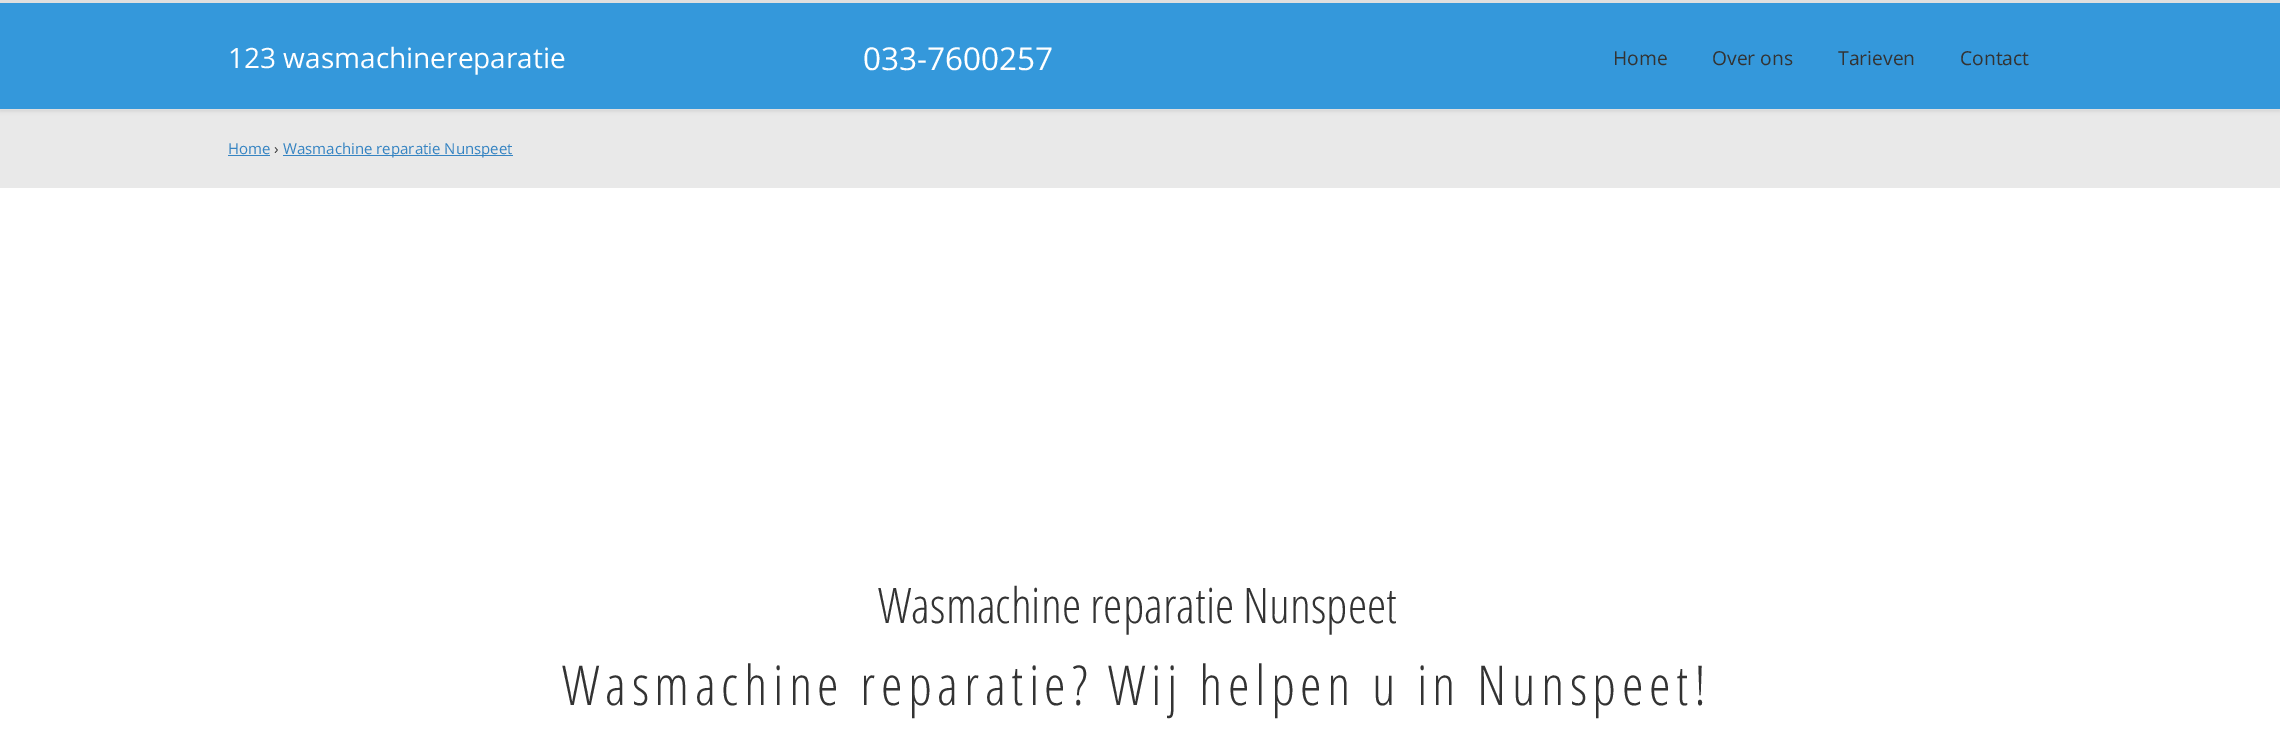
%!PS-Adobe-3.0
%%BoundingBox: 0 0 2280 747
%%LanguageLevel: 3
%%Pages: 1
%%EndComments
%%BeginProlog
/m { moveto } bind def
/fn { [ exch dup neg 0 0 3 -1 roll 0 0 ] selectfont } def
/tx { moveto show } def
/bx { rectfill } def
/al { dup .setfillconstantalpha .setstrokeconstantalpha } def
/rr { 5 dict begin { /r /h /w /y /x } { exch def } forall
  x r add y moveto x w add y 2 copy h add r arct x w add y h add x 1 index r arct
  x y h add x y r arct x y 2 copy exch w add exch r arct closepath end } def
/sh { 12 dict begin { /a /b /q /h /w /y /x } { exch def } forall gsave /was 0 def
  9 -2 -9 { dup b mul 4 div /e exch def 1 sub .425 mul 2.718 exch exp 1 add a .99 .min exch div /now exch def
    1 1 now sub 1 was sub div sub al /was now def
    w h .min e 2 mul add 0 gt { x e sub y e sub w e 2 mul add h e 2 mul add
      q e add b .6 mul add w h .min 2 div e add .min 0 .max rr fill } if } for grestore end } def
%%EndProlog
%%BeginSetup
<< /PageSize [2280 747] /PageUsesTransparency true >> setpagedevice
%%EndSetup
%%Page: 1 1
0 .pushpdf14devicefilter
0 747 translate 1 -1 scale
4 setmiterlimit
1 setgray
0 0 2280 747 bx
0.914 setgray
0 110 2280 78 bx
0 setgray
0 1 2280 110 0 2 0.1 sh
0.204 0.596 0.859 setrgbcolor
0 3 2280 106 bx
0.875 setgray
0 0 2280 3 bx
0 109 2280 1 bx
/OpenSans-Regular 28 fn
1 setgray
(123 wasmachinereparatie) 228 68 tx
/OpenSans-Regular 31.5 fn
(033-7600257) 863 70 tx
/OpenSans-Regular 19.25 fn
0.2 setgray
(Home) 1613 65 tx
(Over ons) 1712 65 tx
(Tarieven) 1838 65 tx
(Contact) 1960 65 tx
/OpenSans-Regular 15 fn
0.212 0.518 0.761 setrgbcolor
(Home) 228 154 tx
228 155 42 1 bx
0.2 setgray
(›) 274 154 tx
0.212 0.518 0.761 setrgbcolor
283 155 230 1 bx
(Wasmachine reparatie Nunspeet) 283 154 tx
/OpenSans-Light 49 fn
0.2 setgray
(Wasmachine reparatie Nunspeet) 878 623 tx
/OpenSans-Light 55 fn
562 705 m 5.5 0 (Wasmachine reparatie? Wij helpen u in Nunspeet!) ashow
.poppdf14devicefilter showpage
%%EOF
